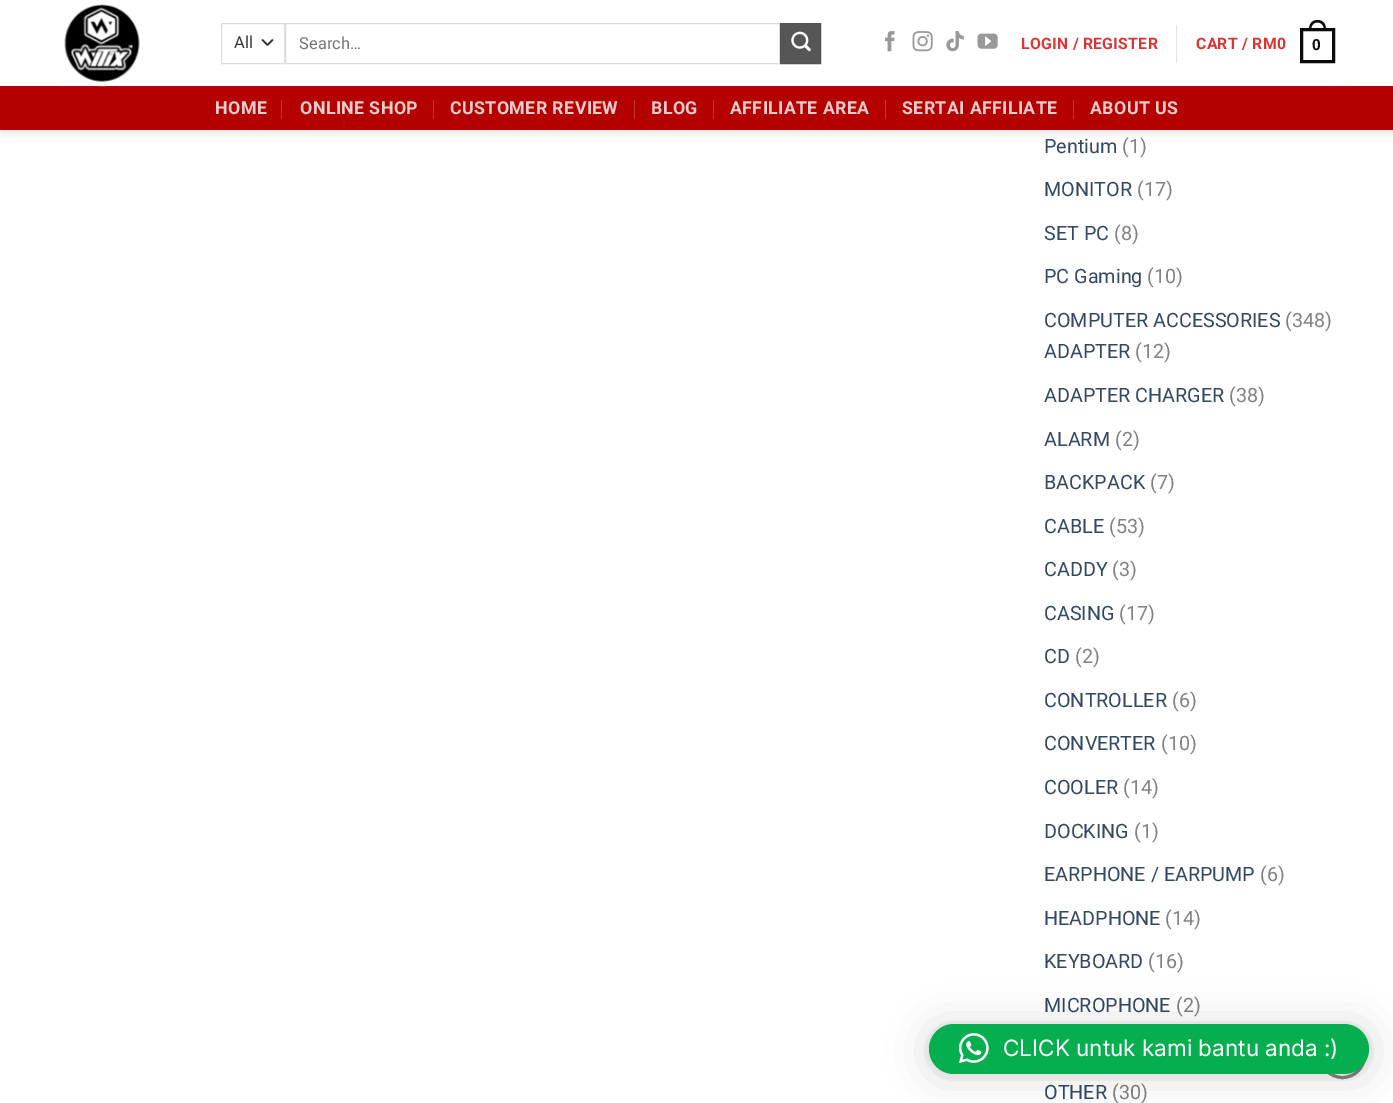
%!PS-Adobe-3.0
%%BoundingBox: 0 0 1393 1103
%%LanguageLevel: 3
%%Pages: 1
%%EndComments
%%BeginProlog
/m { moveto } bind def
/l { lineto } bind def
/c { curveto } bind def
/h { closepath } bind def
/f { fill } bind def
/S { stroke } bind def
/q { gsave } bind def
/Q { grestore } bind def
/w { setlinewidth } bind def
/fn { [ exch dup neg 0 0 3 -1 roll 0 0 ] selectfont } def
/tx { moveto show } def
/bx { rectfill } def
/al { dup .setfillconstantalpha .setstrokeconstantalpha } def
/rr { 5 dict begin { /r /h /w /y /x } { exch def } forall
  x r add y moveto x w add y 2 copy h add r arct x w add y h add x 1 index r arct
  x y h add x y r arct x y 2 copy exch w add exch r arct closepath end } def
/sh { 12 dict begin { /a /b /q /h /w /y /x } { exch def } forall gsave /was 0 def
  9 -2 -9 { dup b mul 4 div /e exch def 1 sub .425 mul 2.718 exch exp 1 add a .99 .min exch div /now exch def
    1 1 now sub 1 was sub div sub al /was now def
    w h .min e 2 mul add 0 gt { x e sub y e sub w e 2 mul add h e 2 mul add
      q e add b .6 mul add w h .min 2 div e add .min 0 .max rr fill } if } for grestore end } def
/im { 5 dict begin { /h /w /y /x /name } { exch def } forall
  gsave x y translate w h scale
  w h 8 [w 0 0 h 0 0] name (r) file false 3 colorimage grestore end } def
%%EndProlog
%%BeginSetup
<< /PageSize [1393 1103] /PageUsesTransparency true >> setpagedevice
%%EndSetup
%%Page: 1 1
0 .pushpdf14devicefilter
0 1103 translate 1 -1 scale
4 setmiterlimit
1 setgray
0 0 1393 1103 bx
q
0 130 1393 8 rectclip
0 setgray
1 1 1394 130 0 6 0.15 sh
Q
0.71 0 0 setrgbcolor
0 86 1393 44 bx
(image0.raw) 64 4 76 83 im
0.2 setgray
1.7 w
1 setlinecap
1 setlinejoin
262.5 40 m 267.5 45 l 272.5 40 l S
0.867 setgray
1 w
0 setlinecap
0 setlinejoin
221.5 23.5 63 40 rectstroke
/Roboto-Regular 16.5 fn
0.2 setgray
(All) 234 48 tx
0.867 setgray
285.5 23.5 494 40 rectstroke
0.459 setgray
(Search…) 299 49 tx
0.337 setgray
780.5 23.5 m 820.5 23.5 l 820.5 63.5 l 780.5 63.5 l h q f Q
0.322 setgray
S
(image1.raw) 791 31 20 21 im
(image2.raw) 885 31 10 21 im
(image3.raw) 912 31 21 21 im
(image4.raw) 946 31 18 21 im
(image5.raw) 977 33 21 16 im
/Roboto-Bold 15.75 fn
0.867 0.2 0.2 setrgbcolor
1021 49 m 0.3 0 (LOGIN / REGISTER) ashow
0.898 setgray
1176 25 1 38 bx
0.867 0.2 0.2 setrgbcolor
1196 49 m 0.3 0 (CART / RM0) ashow
0.039 setgray
3 w
1301.5 29.5 32 32 rectstroke
1317.5 20 m 1323.5 20 1326 24.5 1326 30 c 1309 30 l 1309 24.5 1311.5 20 1317.5 20 c h 1317.5 22.5 m 1322 22.5 1324 26 1324 30 c 1311 30 l 1311 26 1313 22.5 1317.5 22.5 c h eofill
/LiberationSans-Bold 15.75 fn
1312 50 m 0.3 0 (0) ashow
0.1 al
0.51 setgray
60 86 1275 1 bx
/Roboto-Bold 17.75 fn
1 al
0.941 0.8 0.8 setrgbcolor
215 114 m 0.4 0 (HOME) ashow
0.769 0.2 0.2 setrgbcolor
281 100 1 19 bx
0.941 0.8 0.8 setrgbcolor
300 114 m 0.4 0 (ONLINE SHOP) ashow
0.769 0.2 0.2 setrgbcolor
433 100 1 19 bx
0.941 0.8 0.8 setrgbcolor
450 114 m 0.4 0 (CUSTOMER REVIEW) ashow
0.769 0.2 0.2 setrgbcolor
634 100 1 19 bx
0.941 0.8 0.8 setrgbcolor
651 114 m 0.4 0 (BLOG) ashow
0.769 0.2 0.2 setrgbcolor
713 100 1 19 bx
0.941 0.8 0.8 setrgbcolor
730 114 m 0.4 0 (AFFILIATE AREA) ashow
0.769 0.2 0.2 setrgbcolor
885 100 1 19 bx
0.941 0.8 0.8 setrgbcolor
902 114 m 0.4 0 (SERTAI AFFILIATE) ashow
0.769 0.2 0.2 setrgbcolor
1073 100 1 19 bx
0.941 0.8 0.8 setrgbcolor
1090 114 m 0.4 0 (ABOUT US) ashow
/Roboto-Regular 19.75 fn
0.2 0.282 0.384 setrgbcolor
(Pentium) 1044 153 tx
0.51 setgray
(\(1\)) 1122 153 tx
0.2 0.282 0.384 setrgbcolor
(MONITOR) 1044 196 tx
0.51 setgray
(\(17\)) 1137 196 tx
0.2 0.282 0.384 setrgbcolor
(SET PC) 1044 240 tx
0.51 setgray
(\(8\)) 1114 240 tx
0.2 0.282 0.384 setrgbcolor
(PC Gaming) 1044 283 tx
0.51 setgray
(\(10\)) 1147 283 tx
0.2 0.282 0.384 setrgbcolor
(COMPUTER ACCESSORIES) 1044 327 tx
0.51 setgray
(\(348\)) 1285 327 tx
0.2 0.282 0.384 setrgbcolor
(ADAPTER) 1044 358 tx
0.51 setgray
(\(12\)) 1135 358 tx
0.2 0.282 0.384 setrgbcolor
(ADAPTER CHARGER) 1044 402 tx
0.51 setgray
(\(38\)) 1229 402 tx
0.2 0.282 0.384 setrgbcolor
(ALARM) 1044 446 tx
0.51 setgray
(\(2\)) 1115 446 tx
0.2 0.282 0.384 setrgbcolor
(BACKPACK) 1044 489 tx
0.51 setgray
(\(7\)) 1150 489 tx
0.2 0.282 0.384 setrgbcolor
(CABLE) 1044 533 tx
0.51 setgray
(\(53\)) 1109 533 tx
0.2 0.282 0.384 setrgbcolor
(CADDY) 1044 576 tx
0.51 setgray
(\(3\)) 1112 576 tx
0.2 0.282 0.384 setrgbcolor
(CASING) 1044 620 tx
0.51 setgray
(\(17\)) 1119 620 tx
0.2 0.282 0.384 setrgbcolor
(CD) 1044 663 tx
0.51 setgray
(\(2\)) 1075 663 tx
0.2 0.282 0.384 setrgbcolor
(CONTROLLER) 1044 707 tx
0.51 setgray
(\(6\)) 1172 707 tx
0.2 0.282 0.384 setrgbcolor
(CONVERTER) 1044 750 tx
0.51 setgray
(\(10\)) 1161 750 tx
0.2 0.282 0.384 setrgbcolor
(COOLER) 1044 794 tx
0.51 setgray
(\(14\)) 1123 794 tx
0.2 0.282 0.384 setrgbcolor
(DOCKING) 1044 838 tx
0.51 setgray
(\(1\)) 1134 838 tx
0.2 0.282 0.384 setrgbcolor
(EARPHONE / EARPUMP) 1044 881 tx
0.51 setgray
(\(6\)) 1260 881 tx
0.2 0.282 0.384 setrgbcolor
(HEADPHONE) 1044 925 tx
0.51 setgray
(\(14\)) 1165 925 tx
0.2 0.282 0.384 setrgbcolor
(KEYBOARD) 1044 968 tx
0.51 setgray
(\(16\)) 1148 968 tx
0.2 0.282 0.384 setrgbcolor
(MICROPHONE) 1044 1012 tx
0.51 setgray
(\(2\)) 1176 1012 tx
0.2 0.282 0.384 setrgbcolor
(OTHER) 1044 1099 tx
0.51 setgray
(\(30\)) 1112 1099 tx
1320.5 1032.5 44 45 22 rr S
0 setgray
929 1026 440 50 25 20 0.16 sh
929 1025 440 50 25 4 0.06 sh
0.02 0.686 0.31 setrgbcolor
929 1024 440 50 25 rr f
(image6.raw) 958 1033 31 30 im
/Inter-Regular 22.5 fn
1 setgray
(CLICK untuk kami bantu anda :\)) 1003 1056 tx
.poppdf14devicefilter showpage
%%EOF
